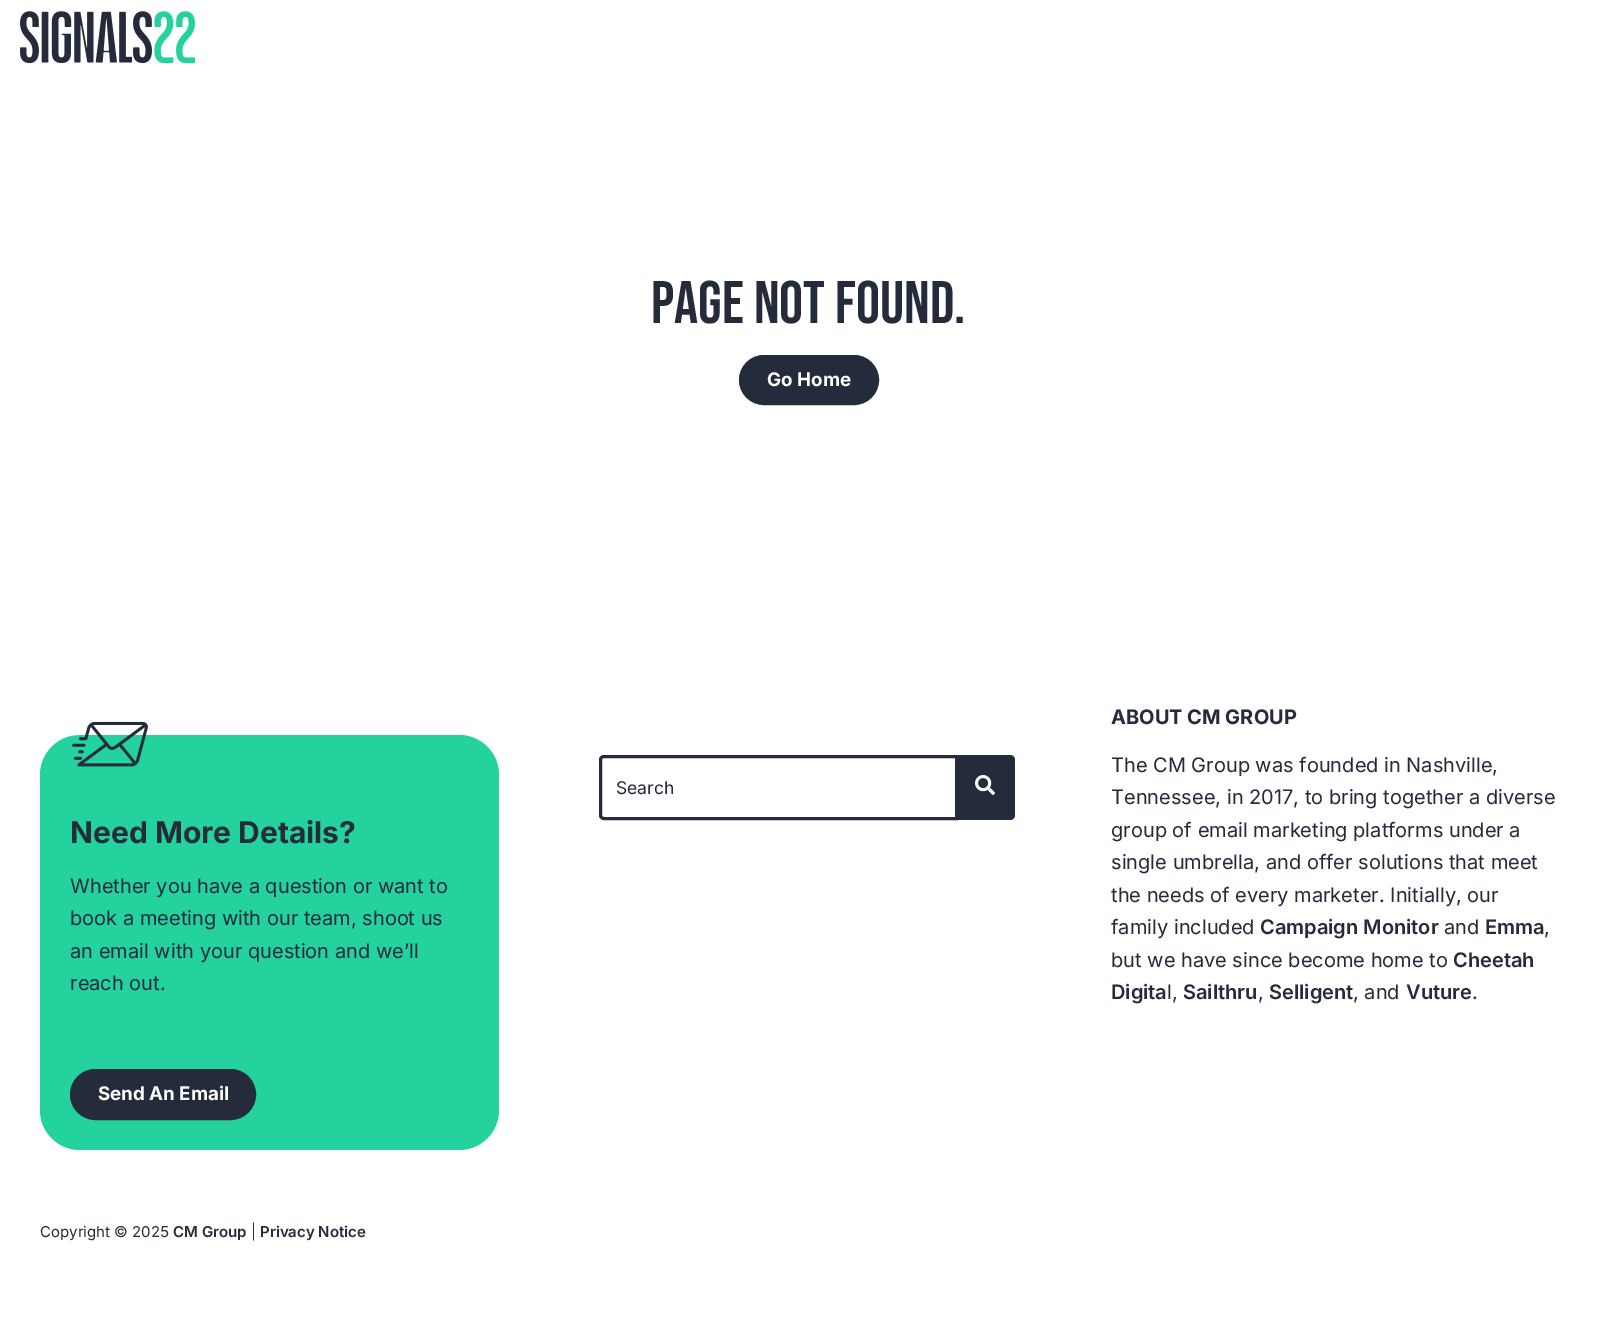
%!PS-Adobe-3.0
%%BoundingBox: 0 0 1617 1334
%%LanguageLevel: 3
%%Pages: 1
%%EndComments
%%BeginProlog
/m { moveto } bind def
/l { lineto } bind def
/c { curveto } bind def
/h { closepath } bind def
/f { fill } bind def
/S { stroke } bind def
/q { gsave } bind def
/Q { grestore } bind def
/w { setlinewidth } bind def
/fn { [ exch dup neg 0 0 3 -1 roll 0 0 ] selectfont } def
/tx { moveto show } def
/bx { rectfill } def
/rr { 5 dict begin { /r /h /w /y /x } { exch def } forall
  x r add y moveto x w add y 2 copy h add r arct x w add y h add x 1 index r arct
  x y h add x y r arct x y 2 copy exch w add exch r arct closepath end } def
/im { 5 dict begin { /h /w /y /x /name } { exch def } forall
  gsave x y translate w h scale
  w h 8 [w 0 0 h 0 0] name (r) file false 3 colorimage grestore end } def
%%EndProlog
%%BeginSetup
<< /PageSize [1617 1334] >> setpagedevice
%%EndSetup
%%Page: 1 1
0 1334 translate 1 -1 scale
4 setmiterlimit
1 setgray
0 0 1617 1334 bx
(image0.raw) 20 11 175 53 im
/BebasNeue-Regular 60 fn
0.141 0.169 0.227 setrgbcolor
651 323 m 0.1 0 (Page not found.) ashow
740.5 356.5 137 47 23.5 rr q f Q
3 w
S
/Inter-Bold 18.75 fn
1 setgray
(Go Home) 767 386 tx
0.141 0.824 0.62 setrgbcolor
40 735 459 415 40 rr f
(image1.raw) 72 721 76 46 im
/Inter-Bold 30 fn
0.141 0.169 0.227 setrgbcolor
(Need More Details?) 70 843 tx
/Inter-Regular 20 fn
(Whether you have a question or want to) 70 893 tx
(book a meeting with our team, shoot us) 70 925 tx
(an email with your question and we’ll) 70 958 tx
(reach out.) 70 990 tx
71.5 1070.5 183 48 24 rr q f Q
S
/Inter-Bold 18.75 fn
1 setgray
(Send An Email) 98 1100 tx
0.141 0.169 0.227 setrgbcolor
604 756.5 m 956.5 756.5 l 956.5 818.5 l 604 818.5 l 602 818.5 600.5 817 600.5 815 c 600.5 760 l 600.5 758 602 756.5 604 756.5 c h S
/Inter-Regular 17.5 fn
(Search) 616 794 tx
955 755 m 1010 755 l 1013 755 1015 757 1015 760 c 1015 815 l 1015 818 1013 820 1010 820 c 955 820 l h f
(image2.raw) 975 775 20 20 im
/Inter-Bold 20 fn
(ABOUT CM GROUP) 1111 724 tx
/Inter-Regular 20 fn
(The CM Group was founded in Nashville,) 1111 772 tx
(Tennessee, in 2017, to bring together a diverse) 1111 804 tx
(group of email marketing platforms under a) 1111 837 tx
(single umbrella, and offer solutions that meet) 1111 869 tx
(the needs of every marketer. Initially, our) 1111 902 tx
(family included) 1111 934 tx
/Inter-SemiBold 20 fn
(Campaign Monitor) 1260 934 tx
/Inter-Regular 20 fn
(and) 1444 934 tx
/Inter-SemiBold 20 fn
(Emma) 1485 934 tx
/Inter-Regular 20 fn
(,) 1544 934 tx
(but we have since become home to) 1111 967 tx
/Inter-SemiBold 20 fn
(Cheetah) 1453 967 tx
(Digita) 1111 999 tx
/Inter-Regular 20 fn
(l,) 1167 999 tx
/Inter-SemiBold 20 fn
(Sailthru) 1183 999 tx
/Inter-Regular 20 fn
(,) 1258 999 tx
/Inter-SemiBold 20 fn
(Selligent) 1269 999 tx
/Inter-Regular 20 fn
(, and) 1353 999 tx
/Inter-SemiBold 20 fn
(Vuture) 1406 999 tx
/Inter-Regular 20 fn
(.) 1472 999 tx
/Inter-Regular 15 fn
(Copyright © 2025) 40 1237 tx
/Inter-SemiBold 15 fn
(CM Group) 173 1237 tx
/Inter-Regular 15 fn
(|) 251 1237 tx
/Inter-SemiBold 15 fn
(Privacy Notice) 260 1237 tx
showpage
%%EOF
